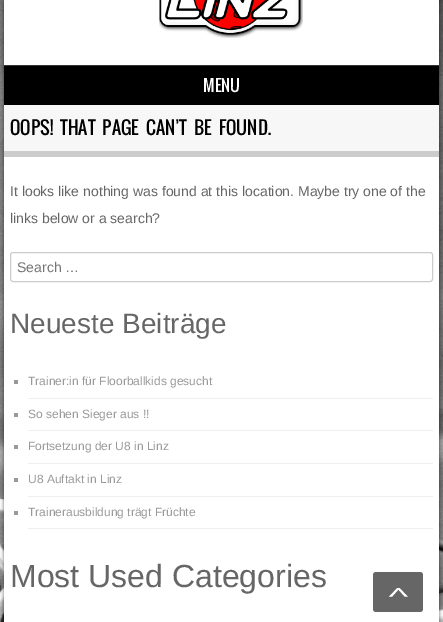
%!PS-Adobe-3.0
%%BoundingBox: 0 0 443 622
%%LanguageLevel: 3
%%Pages: 1
%%EndComments
%%BeginProlog
/m { moveto } bind def
/f { fill } bind def
/S { stroke } bind def
/fn { [ exch dup neg 0 0 3 -1 roll 0 0 ] selectfont } def
/tx { moveto show } def
/bx { rectfill } def
/al { dup .setfillconstantalpha .setstrokeconstantalpha } def
/rr { 5 dict begin { /r /h /w /y /x } { exch def } forall
  x r add y moveto x w add y 2 copy h add r arct x w add y h add x 1 index r arct
  x y h add x y r arct x y 2 copy exch w add exch r arct closepath end } def
/sh { 12 dict begin { /a /b /q /h /w /y /x } { exch def } forall gsave /was 0 def
  9 -2 -9 { dup b mul 4 div /e exch def 1 sub .425 mul 2.718 exch exp 1 add a .99 .min exch div /now exch def
    1 1 now sub 1 was sub div sub al /was now def
    w h .min e 2 mul add 0 gt { x e sub y e sub w e 2 mul add h e 2 mul add
      q e add b .6 mul add w h .min 2 div e add .min 0 .max rr fill } if } for grestore end } def
/im { 5 dict begin { /h /w /y /x /name } { exch def } forall
  gsave x y translate w h scale
  w h 8 [w 0 0 h 0 0] name (r) file false 3 colorimage grestore end } def
%%EndProlog
%%BeginSetup
<< /PageSize [443 622] /PageUsesTransparency true >> setpagedevice
%%EndSetup
%%Page: 1 1
0 .pushpdf14devicefilter
0 622 translate 1 -1 scale
4 setmiterlimit
1 setgray
0 0 443 622 bx
(image0.raw) 0 0 443 622 im
0 setgray
4 -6 435 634 0 2 0.6 sh
1 setgray
4 0 435 622 bx
(image1.raw) 159 0 144 38 im
0 setgray
4 66 435 39 bx
0.2 setgray
4 65 435 1 bx
/Oswald-Regular 16 fn
1 setgray
(MENU) 203 92 tx
0.969 setgray
4 105 435 46 bx
0.8 setgray
4 151 435 6 bx
/Oswald-Regular 18 fn
0 setgray
10 135 m 4 0 32 (OOPS! THAT PAGE CAN’T BE FOUND.) widthshow
/LiberationSans-Regular 14 fn
0.4 setgray
(It looks like nothing was found at this location. Maybe try one of the) 10 196 tx
(links below or a search?) 10 223 tx
0.8 setgray
10.5 252.5 422 29 2.5 rr S
0.459 setgray
(Search …) 17 272 tx
/LiberationSans-Regular 28 fn
0.4 setgray
(Neueste Beiträge) 10 333 tx
0.937 setgray
28 398 405 1 bx
0.6 setgray
14 380 4 4 bx
/LiberationSans-Regular 12 fn
(Trainer:in für Floorballkids gesucht) 28 385 tx
0.937 setgray
28 430 405 1 bx
0.6 setgray
14 413 4 4 bx
(So sehen Sieger aus !!) 28 418 tx
0.937 setgray
28 463 405 1 bx
0.6 setgray
14 445 4 4 bx
(Fortsetzung der U8 in Linz) 28 450 tx
0.937 setgray
28 496 405 1 bx
0.6 setgray
14 478 4 4 bx
(U8 Auftakt in Linz) 28 483 tx
0.937 setgray
28 528 405 1 bx
0.6 setgray
14 511 4 4 bx
(Trainerausbildung trägt Früchte) 28 516 tx
/LiberationSans-Regular 32 fn
0.4 setgray
(Most Used Categories) 10 587 tx
373 572 50 40 3 rr f
(image2.raw) 389 588 19 9 im
.poppdf14devicefilter showpage
%%EOF
